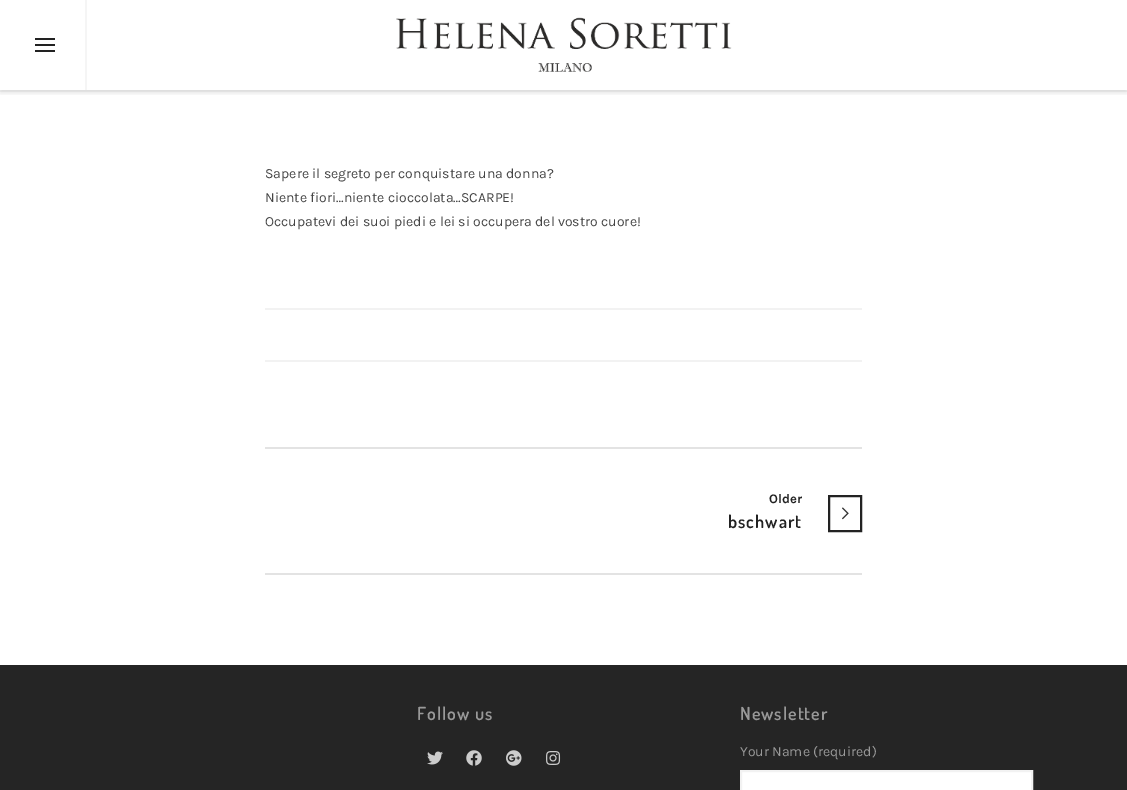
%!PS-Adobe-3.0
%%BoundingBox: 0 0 1127 790
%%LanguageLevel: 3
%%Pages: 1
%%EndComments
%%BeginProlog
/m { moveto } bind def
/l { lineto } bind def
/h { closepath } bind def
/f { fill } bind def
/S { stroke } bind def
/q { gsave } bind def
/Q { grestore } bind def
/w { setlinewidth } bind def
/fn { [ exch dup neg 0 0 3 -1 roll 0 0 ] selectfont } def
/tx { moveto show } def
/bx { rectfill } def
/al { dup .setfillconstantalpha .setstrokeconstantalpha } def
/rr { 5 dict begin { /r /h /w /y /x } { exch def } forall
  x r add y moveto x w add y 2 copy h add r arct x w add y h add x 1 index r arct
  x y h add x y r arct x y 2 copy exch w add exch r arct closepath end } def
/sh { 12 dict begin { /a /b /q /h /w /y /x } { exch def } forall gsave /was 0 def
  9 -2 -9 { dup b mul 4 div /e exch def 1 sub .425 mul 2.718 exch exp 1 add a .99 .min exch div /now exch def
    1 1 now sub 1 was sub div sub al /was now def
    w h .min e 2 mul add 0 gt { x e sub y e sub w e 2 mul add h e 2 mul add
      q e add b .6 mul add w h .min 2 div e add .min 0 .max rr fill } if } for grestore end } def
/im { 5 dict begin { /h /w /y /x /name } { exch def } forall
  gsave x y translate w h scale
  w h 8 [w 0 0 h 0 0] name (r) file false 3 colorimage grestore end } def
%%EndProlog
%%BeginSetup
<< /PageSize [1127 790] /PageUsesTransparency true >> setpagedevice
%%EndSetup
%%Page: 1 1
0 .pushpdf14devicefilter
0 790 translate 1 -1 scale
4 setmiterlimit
1 setgray
0 0 1127 790 bx
0.961 setgray
0 90 1127 2 bx
q
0 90 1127 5 rectclip
0 setgray
0 3 1127 90 0 2.5 0.1 sh
Q
85 0 2 90 bx
0.133 setgray
35 44 20 2 bx
35 38 20 2 bx
35 50 20 2 bx
(image0.raw) 396 17 336 55 im
/Karla-Regular 14 fn
0.267 setgray
(Sapere il segreto per conquistare una donna?) 265 178 tx
(Niente fiori…niente cioccolata…SCARPE!) 265 202 tx
(Occupatevi dei suoi piedi e lei si occupera del vostro cuore!) 265 226 tx
0.949 setgray
265 308 597 2 bx
265 360 597 2 bx
0.89 setgray
265 447 597 2 bx
265 573 597 2 bx
/Karla-Bold 13 fn
0.133 setgray
(Older) 769 503 tx
2 w
829 496 32 35 rectstroke
(image1.raw) 842 507 7 13 im
/Dosis-SemiBold 18 fn
728 528 m 1 0 (bschwart) ashow
0.145 setgray
0 665 1127 125 bx
0.6 setgray
417 720 m 1 0 (Follow us) ashow
(image2.raw) 427 751 16 14 im
(image3.raw) 466 750 16 16 im
(image4.raw) 506 750 16 16 im
(image5.raw) 546 751 15 14 im
740 720 m 1 0 (Newsletter) ashow
/Karla-Regular 14 fn
(Your Name \(required\)) 740 756 tx
1 setgray
741 771 m 1032 771 l 1032 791 l 741 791 l h q f Q
0.949 setgray
S
.poppdf14devicefilter showpage
%%EOF
